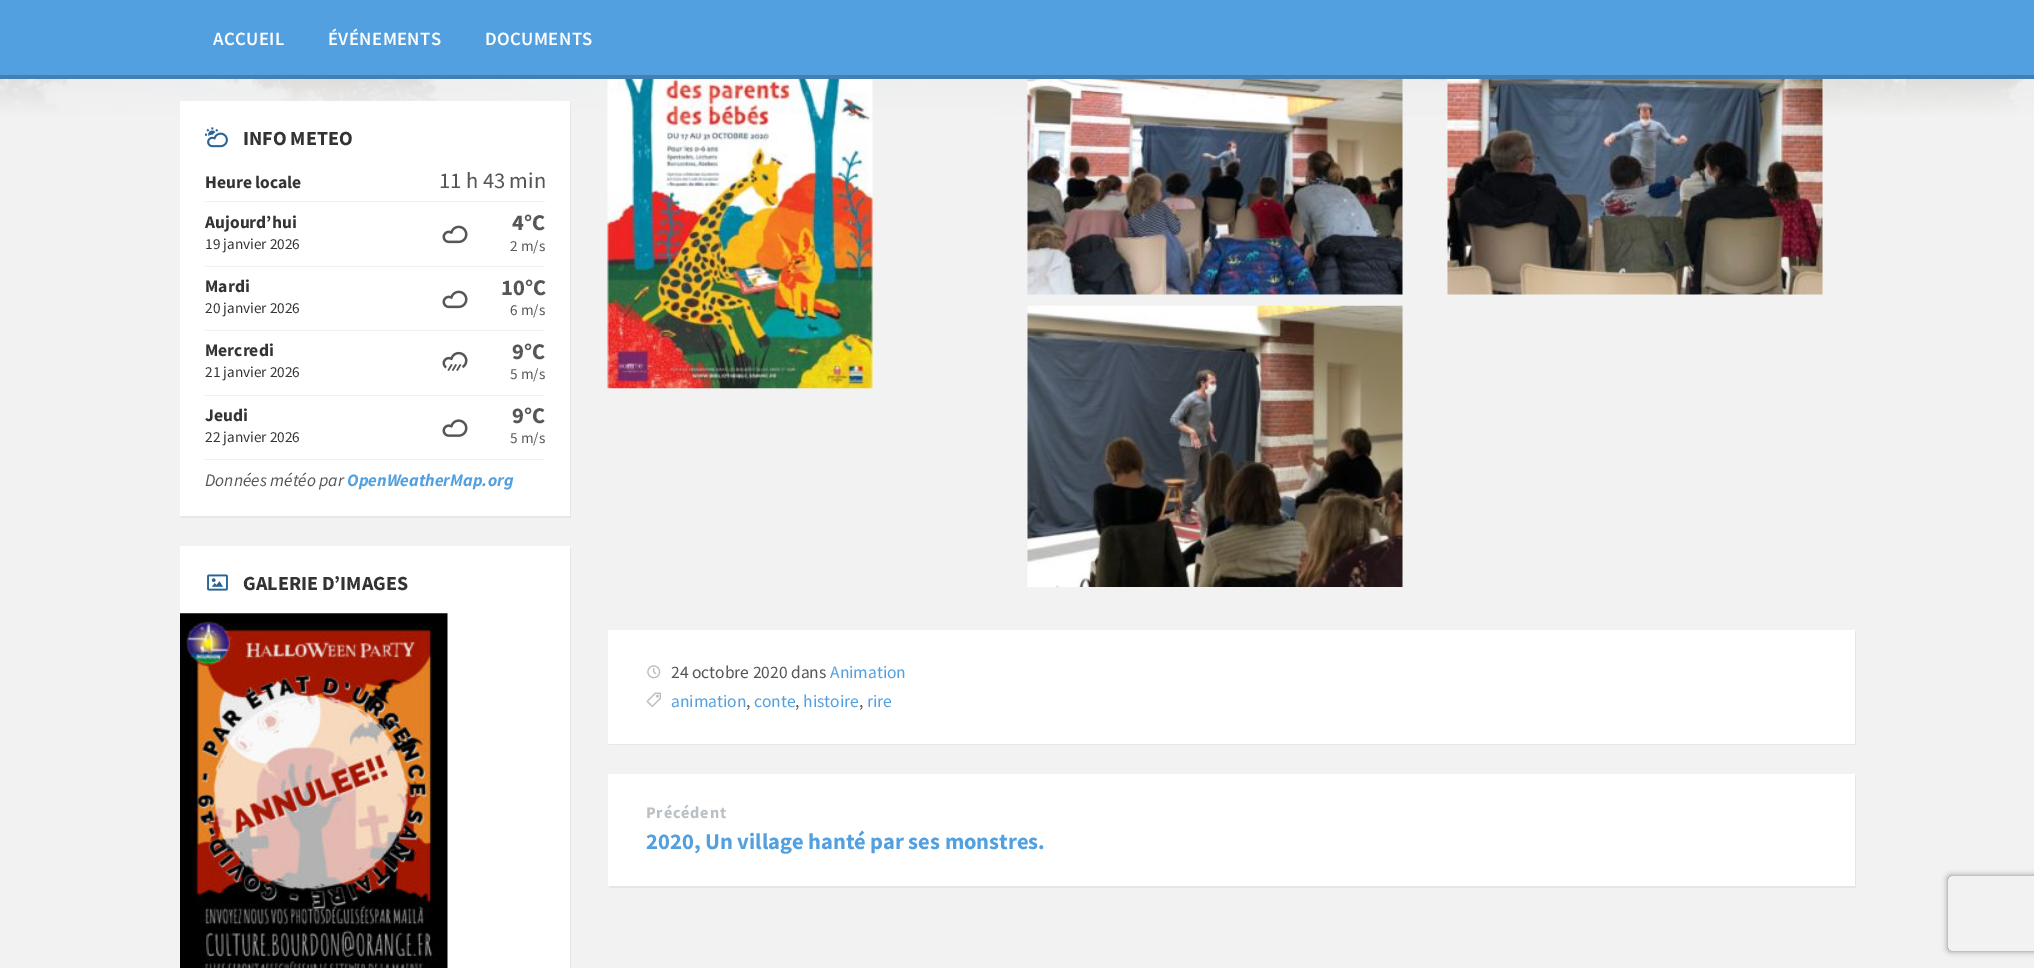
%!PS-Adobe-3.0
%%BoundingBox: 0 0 2034 968
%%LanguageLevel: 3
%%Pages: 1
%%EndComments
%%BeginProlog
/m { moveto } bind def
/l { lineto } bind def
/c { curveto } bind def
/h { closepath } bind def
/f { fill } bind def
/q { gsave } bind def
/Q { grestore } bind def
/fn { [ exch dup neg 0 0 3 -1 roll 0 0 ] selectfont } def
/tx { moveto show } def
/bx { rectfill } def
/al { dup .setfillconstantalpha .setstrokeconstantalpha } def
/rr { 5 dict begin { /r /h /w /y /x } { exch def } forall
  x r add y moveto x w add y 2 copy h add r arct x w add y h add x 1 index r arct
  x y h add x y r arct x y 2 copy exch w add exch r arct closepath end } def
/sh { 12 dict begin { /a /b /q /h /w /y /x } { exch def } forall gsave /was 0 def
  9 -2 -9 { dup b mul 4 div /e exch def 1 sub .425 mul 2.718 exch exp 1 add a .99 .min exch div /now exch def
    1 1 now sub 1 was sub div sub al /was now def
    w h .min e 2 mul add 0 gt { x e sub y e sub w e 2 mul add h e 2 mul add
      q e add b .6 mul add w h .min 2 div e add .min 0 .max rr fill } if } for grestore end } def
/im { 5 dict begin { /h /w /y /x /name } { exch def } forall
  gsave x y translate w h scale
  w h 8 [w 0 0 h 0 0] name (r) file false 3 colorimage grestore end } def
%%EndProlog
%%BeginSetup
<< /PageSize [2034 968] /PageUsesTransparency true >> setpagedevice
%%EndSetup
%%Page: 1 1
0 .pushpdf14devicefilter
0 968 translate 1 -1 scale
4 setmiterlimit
0.949 setgray
0 0 2034 968 bx
0.322 0.627 0.878 setrgbcolor
0 0 2034 75 bx
0.259 0.502 0.702 setrgbcolor
0 75 2034 4 bx
/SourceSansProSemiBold-SemiBold 18.75 fn
1 setgray
213 45 m 0.4 0 (ACCUEIL) ashow
328 45 m 0.4 0 (ÉVÉNEMENTS) ashow
485 45 m 0.4 0 (DOCUMENTS) ashow
(image0.raw) 0 79 2034 38 im
0.902 setgray
181 516 m 181 518 l 571 518 l 571 103 l 570 103 l 570 516 l h f
1 setgray
180 101 390 415 bx
(image1.raw) 205 127 23 21 im
/SourceSansPro-Bold 20 fn
0.2 setgray
(INFO METEO) 243 145 tx
/SourceSansPro-Bold 17.5 fn
(Heure locale) 205 188 tx
/SourceSansPro-Regular 22.5 fn
0.337 setgray
(11 h 43 min) 439 188 tx
0.941 setgray
205 201 340 1 bx
/SourceSansPro-Bold 17.5 fn
0.2 setgray
(Aujourd’hui) 205 228 tx
/SourceSansPro-Regular 15.25 fn
(19 janvier 2026) 205 249 tx
/SourceSansPro-Bold 22.5 fn
0.337 setgray
(4°C) 512 230 tx
(image2.raw) 442 225 26 19 im
/SourceSansPro-Regular 15.25 fn
(2 m/s) 510 251 tx
0.941 setgray
205 266 340 1 bx
/SourceSansPro-Bold 17.5 fn
0.2 setgray
(Mardi) 205 292 tx
/SourceSansPro-Regular 15.25 fn
(20 janvier 2026) 205 313 tx
/SourceSansPro-Bold 22.5 fn
0.337 setgray
(10°C) 501 295 tx
(image2.raw) 442 290 26 19 im
/SourceSansPro-Regular 15.25 fn
(6 m/s) 510 315 tx
0.941 setgray
205 330 340 1 bx
/SourceSansPro-Bold 17.5 fn
0.2 setgray
(Mercredi) 205 356 tx
/SourceSansPro-Regular 15.25 fn
(21 janvier 2026) 205 377 tx
(image3.raw) 442 351 26 20 im
/SourceSansPro-Bold 22.5 fn
0.337 setgray
(9°C) 512 359 tx
/SourceSansPro-Regular 15.25 fn
(5 m/s) 510 379 tx
0.941 setgray
205 395 340 1 bx
/SourceSansPro-Bold 17.5 fn
0.2 setgray
(Jeudi) 205 421 tx
/SourceSansPro-Regular 15.25 fn
(22 janvier 2026) 205 442 tx
/SourceSansPro-Bold 22.5 fn
0.337 setgray
(9°C) 512 423 tx
(image4.raw) 442 419 26 18 im
/SourceSansPro-Regular 15.25 fn
(5 m/s) 510 443 tx
0.941 setgray
205 459 340 1 bx
/SourceSansPro-Italic 17.5 fn
0.337 setgray
(Données météo par) 205 486 tx
/SourceSansPro-BoldItalic 17.5 fn
0.322 0.627 0.878 setrgbcolor
(OpenWeatherMap.org) 347 486 tx
0.902 setgray
181 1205 m 181 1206 l 571 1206 l 571 548 l 570 548 l 570 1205 l h f
1 setgray
180 546 390 422 bx
(image5.raw) 207 574 21 17 im
/SourceSansPro-Bold 20 fn
0.2 setgray
(GALERIE D’IMAGES) 243 590 tx
(image6.raw) 180 613 268 355 im
(image7.raw) 607 79 266 310 im
(image8.raw) 1027 79 376 216 im
(image9.raw) 1447 79 376 216 im
(image10.raw) 1027 305 376 282 im
0.902 setgray
609 744 m 609 745 l 1856 745 l 1856 631 l 1855 631 l 1855 744 l h f
1 setgray
608 630 1247 114 bx
(image11.raw) 647 665 14 14 im
/SourceSansPro-Regular 17.5 fn
0.337 setgray
(24 octobre 2020 dans) 671 678 tx
0.322 0.627 0.878 setrgbcolor
(Animation) 830 678 tx
(image12.raw) 646 692 15 16 im
(animation) 671 707 tx
0.337 setgray
(,) 746 707 tx
0.322 0.627 0.878 setrgbcolor
(conte) 754 707 tx
0.337 setgray
(,) 795 707 tx
0.322 0.627 0.878 setrgbcolor
(histoire) 803 707 tx
0.337 setgray
(,) 859 707 tx
0.322 0.627 0.878 setrgbcolor
(rire) 867 707 tx
0.902 setgray
609 886 m 609 888 l 1856 888 l 1856 775 l 1855 775 l 1855 886 l h f
1 setgray
608 774 1247 112 bx
/SourceSansPro-Bold 16.25 fn
0.725 0.749 0.765 setrgbcolor
646 818 m 0.75 0 (Précédent) ashow
/SourceSansPro-Bold 22.5 fn
0.322 0.627 0.878 setrgbcolor
(2020, Un village hanté par ses monstres.) 646 849 tx
q
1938 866 m 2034 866 l 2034 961 l 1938 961 l h 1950.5 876 m 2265.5 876 l 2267 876 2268 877 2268 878.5 c 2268 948.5 l 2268 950 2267 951 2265.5 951 c 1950.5 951 l 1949 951 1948 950 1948 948.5 c 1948 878.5 l 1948 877 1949 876 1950.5 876 c h eoclip newpath
0.502 setgray
1948 876 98 75 2.5 3 1 sh
Q
.poppdf14devicefilter showpage
%%EOF
